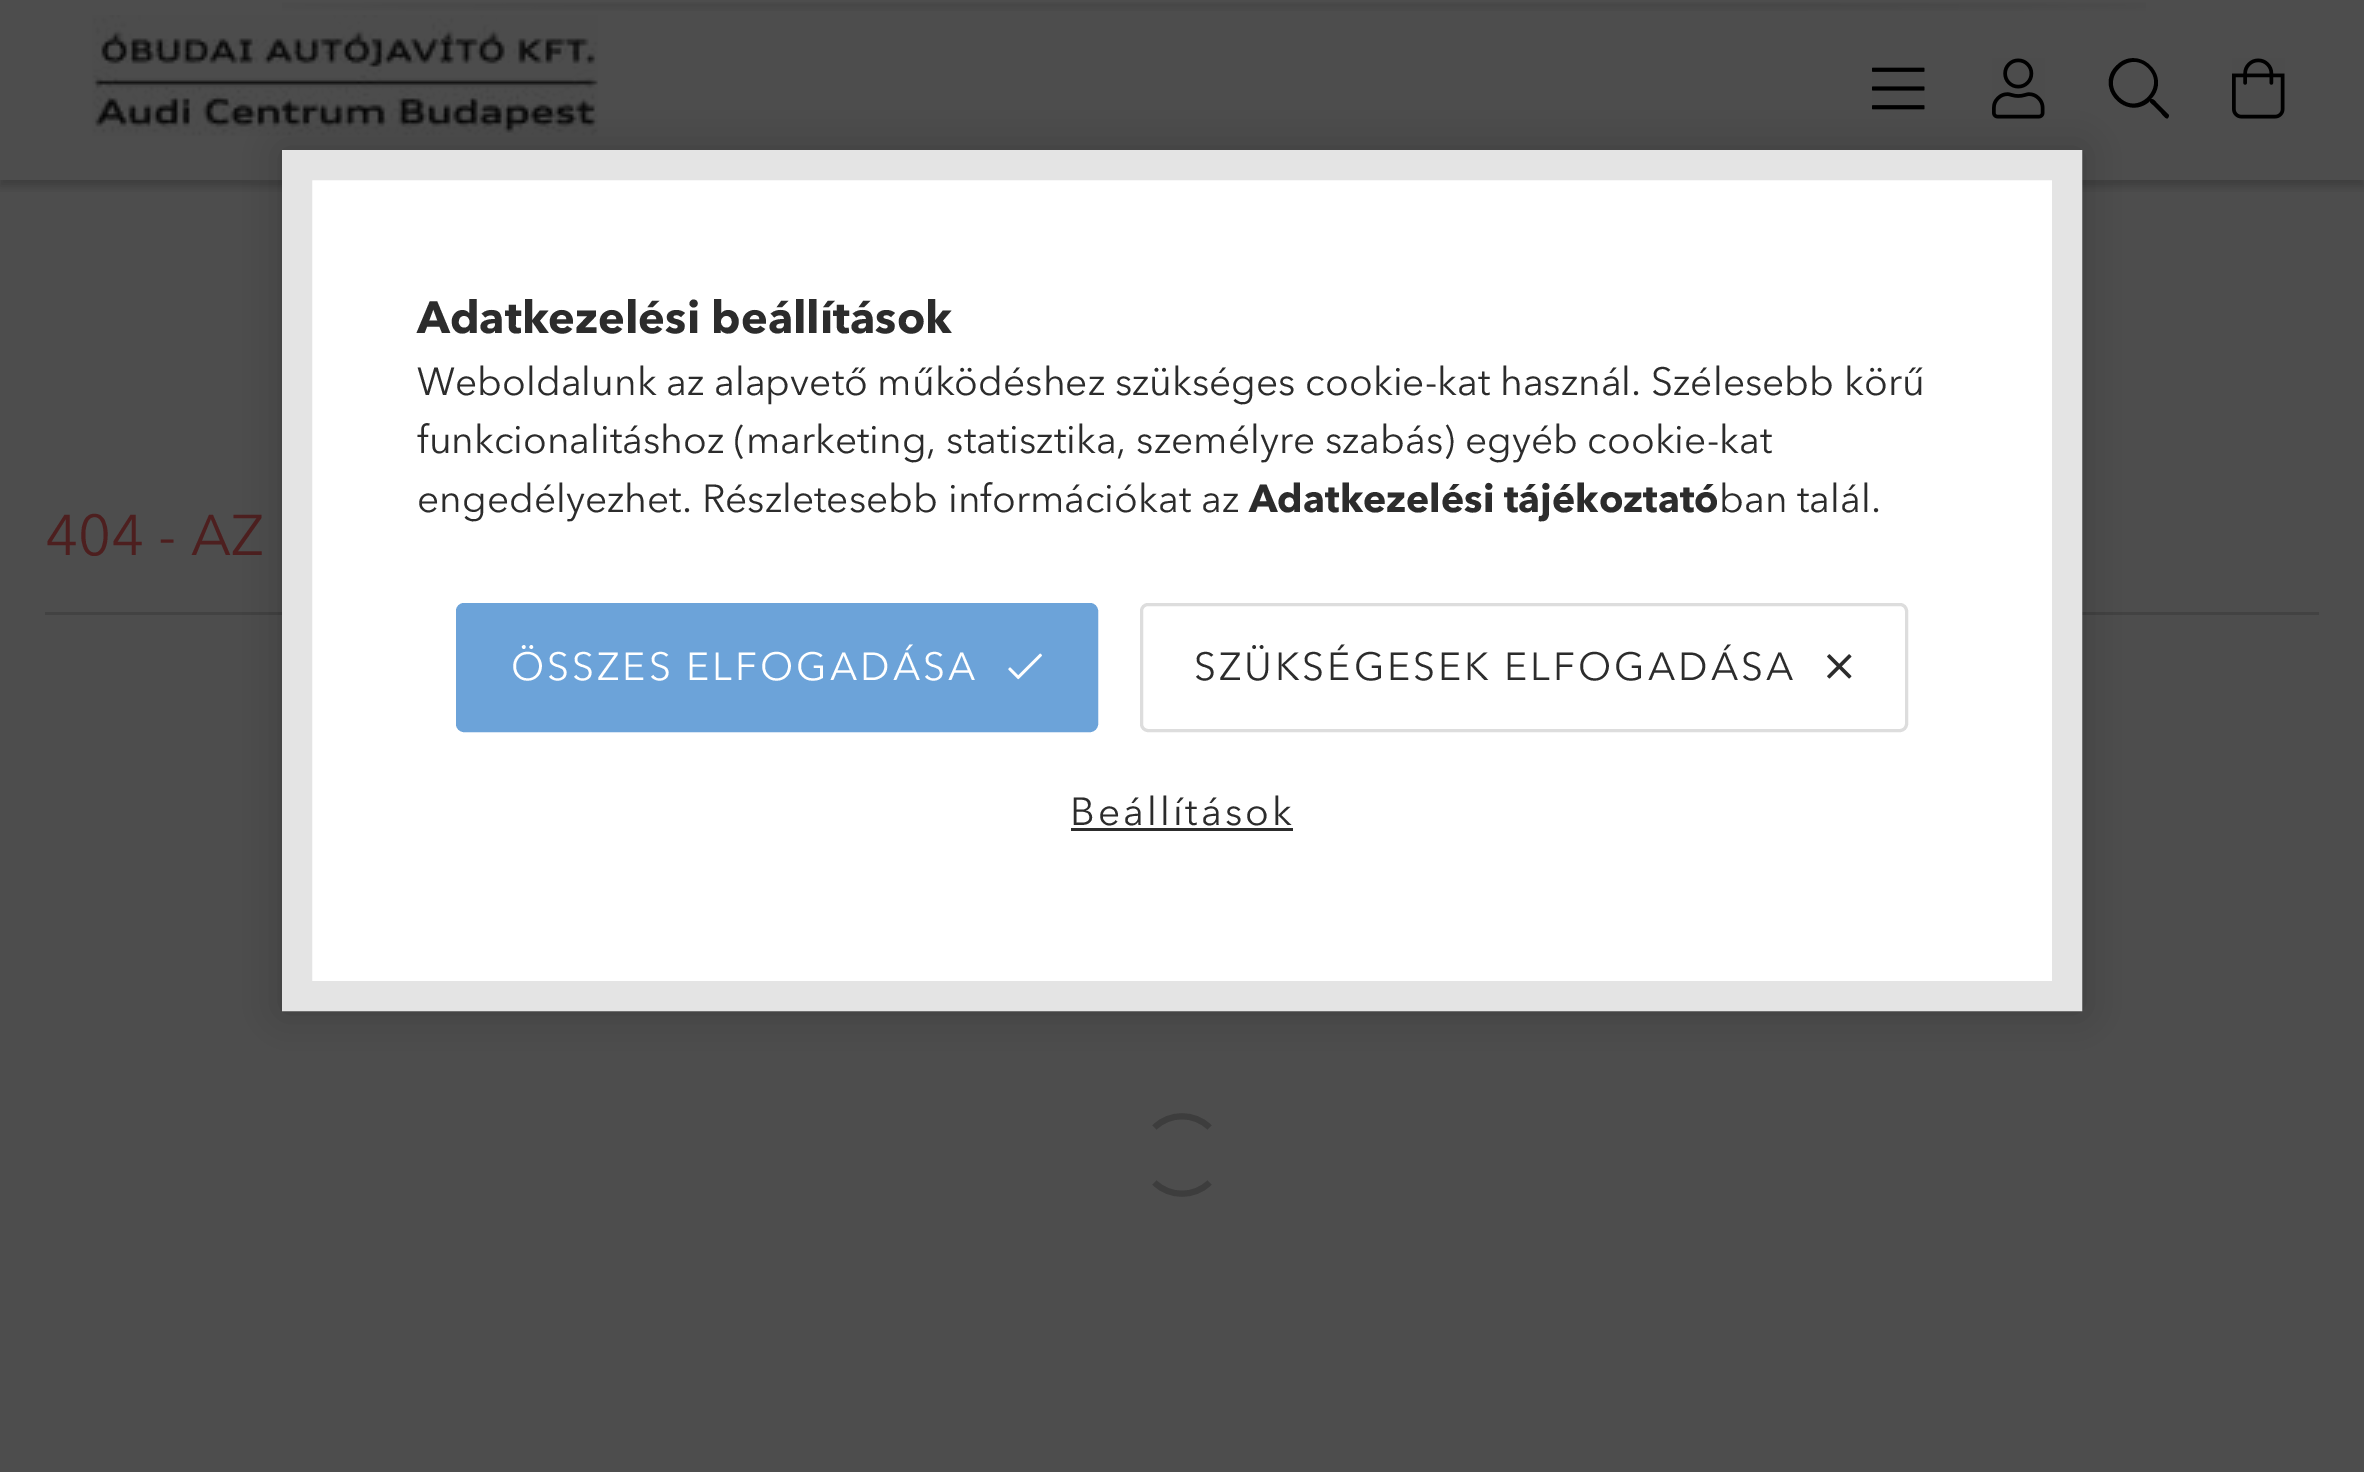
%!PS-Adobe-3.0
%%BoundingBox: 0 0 2364 1472
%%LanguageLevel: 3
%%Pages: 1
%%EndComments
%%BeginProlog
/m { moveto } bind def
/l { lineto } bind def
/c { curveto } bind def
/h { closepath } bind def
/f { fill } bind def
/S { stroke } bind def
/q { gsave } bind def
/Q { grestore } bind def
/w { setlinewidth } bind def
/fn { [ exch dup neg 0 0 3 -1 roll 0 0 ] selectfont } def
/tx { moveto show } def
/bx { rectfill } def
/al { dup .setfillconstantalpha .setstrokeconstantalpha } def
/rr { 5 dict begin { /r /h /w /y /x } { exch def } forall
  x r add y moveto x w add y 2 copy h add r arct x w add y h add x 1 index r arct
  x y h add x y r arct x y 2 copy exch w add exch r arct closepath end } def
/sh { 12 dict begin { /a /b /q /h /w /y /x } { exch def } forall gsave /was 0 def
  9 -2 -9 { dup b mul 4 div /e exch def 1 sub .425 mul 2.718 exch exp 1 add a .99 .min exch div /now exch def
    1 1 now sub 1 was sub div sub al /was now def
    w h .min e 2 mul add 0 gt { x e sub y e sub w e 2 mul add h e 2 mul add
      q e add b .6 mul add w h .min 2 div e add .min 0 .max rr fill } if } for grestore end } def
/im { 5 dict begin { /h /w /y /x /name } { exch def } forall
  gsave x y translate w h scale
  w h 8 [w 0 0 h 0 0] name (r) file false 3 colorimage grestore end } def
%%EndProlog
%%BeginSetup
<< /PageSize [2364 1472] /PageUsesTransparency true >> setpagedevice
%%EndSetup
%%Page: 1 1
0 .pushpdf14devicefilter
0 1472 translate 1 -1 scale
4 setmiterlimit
0.302 setgray
0 0 2364 1472 bx
q
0 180 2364 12 rectclip
0 setgray
0 6 2364 180 0 4.5 0.2 sh
Q
(image0.raw) 282 2 1864 9 im
(image1.raw) 92 15 506 121 im
(image2.raw) 1872 67 53 43 im
(image3.raw) 1992 58 53 61 im
0 setgray
2169 115 m 2169 116 l 2168 118 l 2166 120 2162 114 2161 113 c 2153 105 l 2151 103 2150 103 2150 101 c 2127 122 2094 88 2116 66 c 2138 43 2173 76 2151 99 c 2155 99 2156 103 2159 105 c h 2119 97 m 2138 117 2167 87 2148 68 c 2129 49 2100 78 2119 97 c h f
(image4.raw) 2232 58 53 61 im
0.259 setgray
45 612 2274 3 bx
/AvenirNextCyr-Regular 57 fn
0.302 0.122 0.122 setrgbcolor
(404 - AZ) 45 555 tx
0.239 setgray
6 w
1154.5 1127.5 m 1169.5 1112.5 1194.5 1112.5 1209.5 1127.5 c S
1209.5 1182.5 m 1194.5 1197.5 1169.5 1197.5 1154.5 1182.5 c S
0 setgray
282 150 1800 861 0 18 0.2 sh
1 setgray
297 165 m 2067 165 l 2067 996 l 297 996 l h q f Q
0.894 setgray
30 w
S
/AvenirNextCyr-Bold 45 fn
0.173 setgray
(Adatkezelési beállítások) 417 333 tx
/AvenirNextCyr-Regular 39 fn
(Weboldalunk az alapvető működéshez szükséges cookie-kat használ. Szélesebb körű) 417 395 tx
(funkcionalitáshoz \(marketing, statisztika, személyre szabás\) egyéb cookie-kat) 417 453 tx
(engedélyezhet. Részletesebb információkat az) 417 512 tx
/AvenirNextCyr-Bold 39 fn
(Adatkezelési tájékoztató) 1249 512 tx
/AvenirNextCyr-Regular 39 fn
(ban talál.) 1719 512 tx
0.424 0.639 0.851 setrgbcolor
457.5 604.5 639 126 6.5 rr q f Q
3 w
S
1 setgray
511 680 m 3 0 (ÖSSZES ELFOGADÁSA) ashow
(image5.raw) 1008 653 34 27 im
0.867 setgray
1141.5 604.5 765 126 6.5 rr S
0.173 setgray
1194 680 m 3 0 (SZÜKSÉGESEK ELFOGADÁSA) ashow
(image6.raw) 1827 654 25 25 im
1070 825 m 3 0 (Beállítások) ashow
1071 828 222 3 bx
.poppdf14devicefilter showpage
%%EOF
